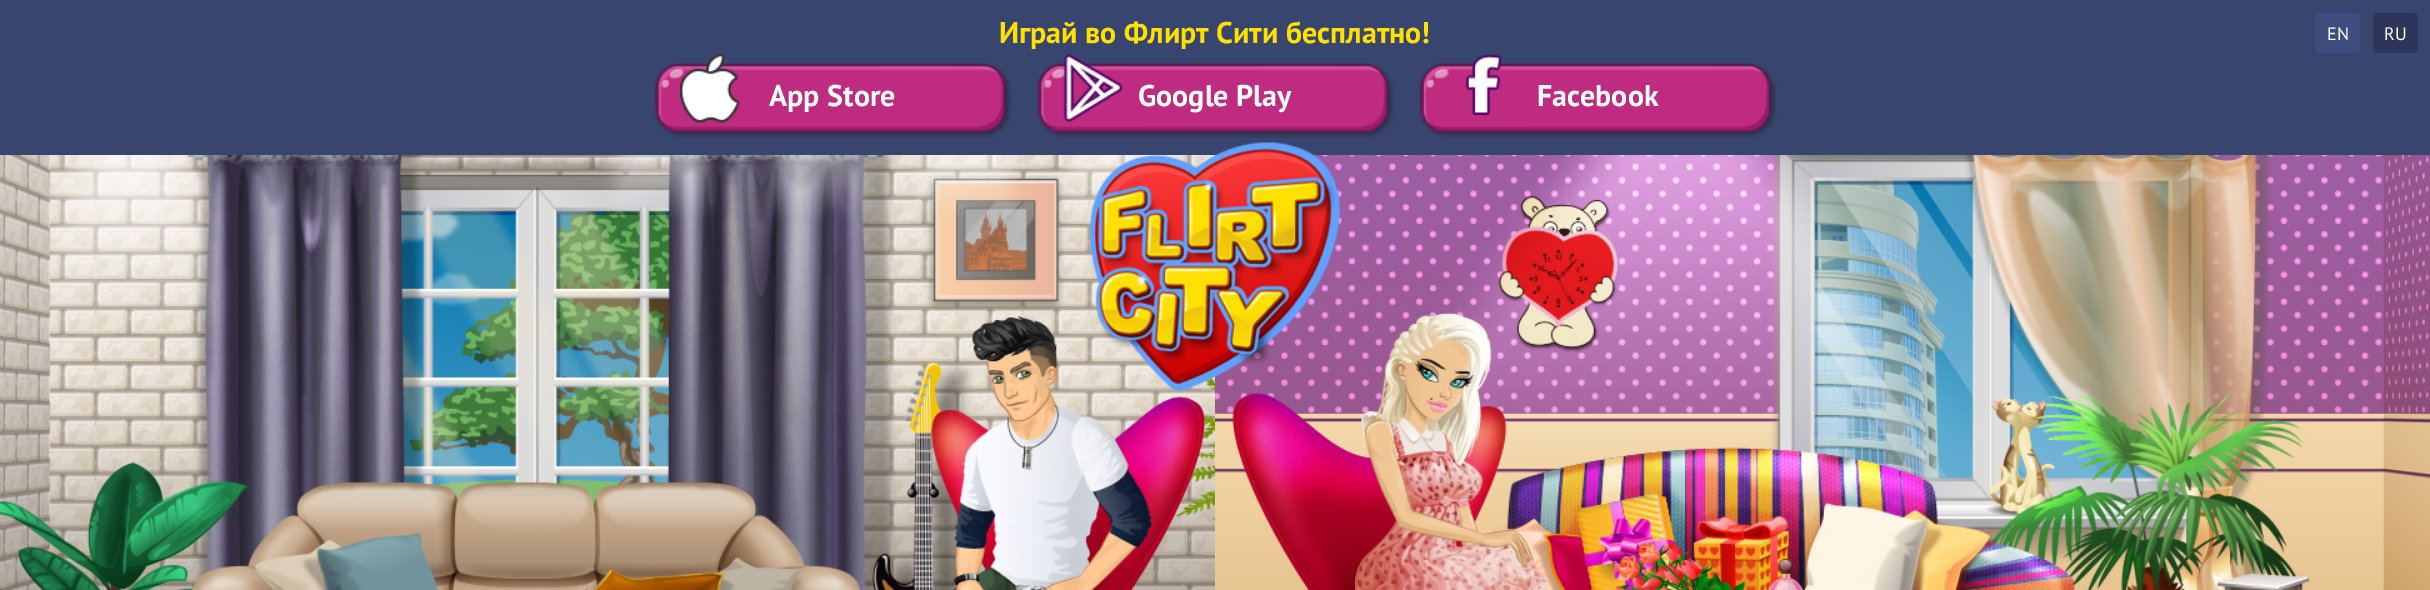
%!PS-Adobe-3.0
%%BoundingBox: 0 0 2430 590
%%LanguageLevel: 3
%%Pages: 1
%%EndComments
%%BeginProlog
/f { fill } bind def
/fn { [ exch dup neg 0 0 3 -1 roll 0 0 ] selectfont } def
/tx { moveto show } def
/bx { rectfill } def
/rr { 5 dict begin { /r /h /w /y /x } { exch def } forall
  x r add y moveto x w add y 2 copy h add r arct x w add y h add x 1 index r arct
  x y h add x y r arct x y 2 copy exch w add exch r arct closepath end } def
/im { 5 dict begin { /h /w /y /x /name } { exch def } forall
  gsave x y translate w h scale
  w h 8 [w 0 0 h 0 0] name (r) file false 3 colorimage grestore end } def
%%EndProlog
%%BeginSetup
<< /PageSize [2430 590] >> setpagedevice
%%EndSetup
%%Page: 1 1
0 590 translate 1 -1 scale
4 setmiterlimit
0.22 0.271 0.435 setrgbcolor
0 0 2430 590 bx
/PTSans-Bold 30 fn
1 0.878 0 setrgbcolor
(Играй во Флирт Сити бесплатно!) 999 43 tx
0.247 0.298 0.494 setrgbcolor
2315 13 45 40 5 rr f
/PTSans-Regular 18 fn
1 setgray
(EN) 2327 40 tx
0.176 0.212 0.353 setrgbcolor
2373 13 45 40 5 rr f
1 setgray
(RU) 2384 40 tx
(image6.raw) 0 155 1215 435 im
(image7.raw) 1215 155 1215 435 im
(image8.raw) 931 396 275 194 im
(image10.raw) 952 387 200 203 im
(image0.raw) 1090 142 250 250 im
(image1.raw) 654 63 358 75 im
(image2.raw) 680 53 60 70 im
/PTSans-Bold 30 fn
(App Store) 769 106 tx
(image3.raw) 1037 63 357 75 im
(image4.raw) 1063 53 60 70 im
(Google Play) 1138 106 tx
(image1.raw) 1419 63 358 75 im
(image5.raw) 1465 54 39 62 im
(Facebook) 1537 106 tx
(image9.raw) 972 316 86 106 im
(image11.raw) 1232 392 277 198 im
(image13.raw) 1355 381 194 209 im
(image12.raw) 1376 313 116 154 im
showpage
%%EOF
